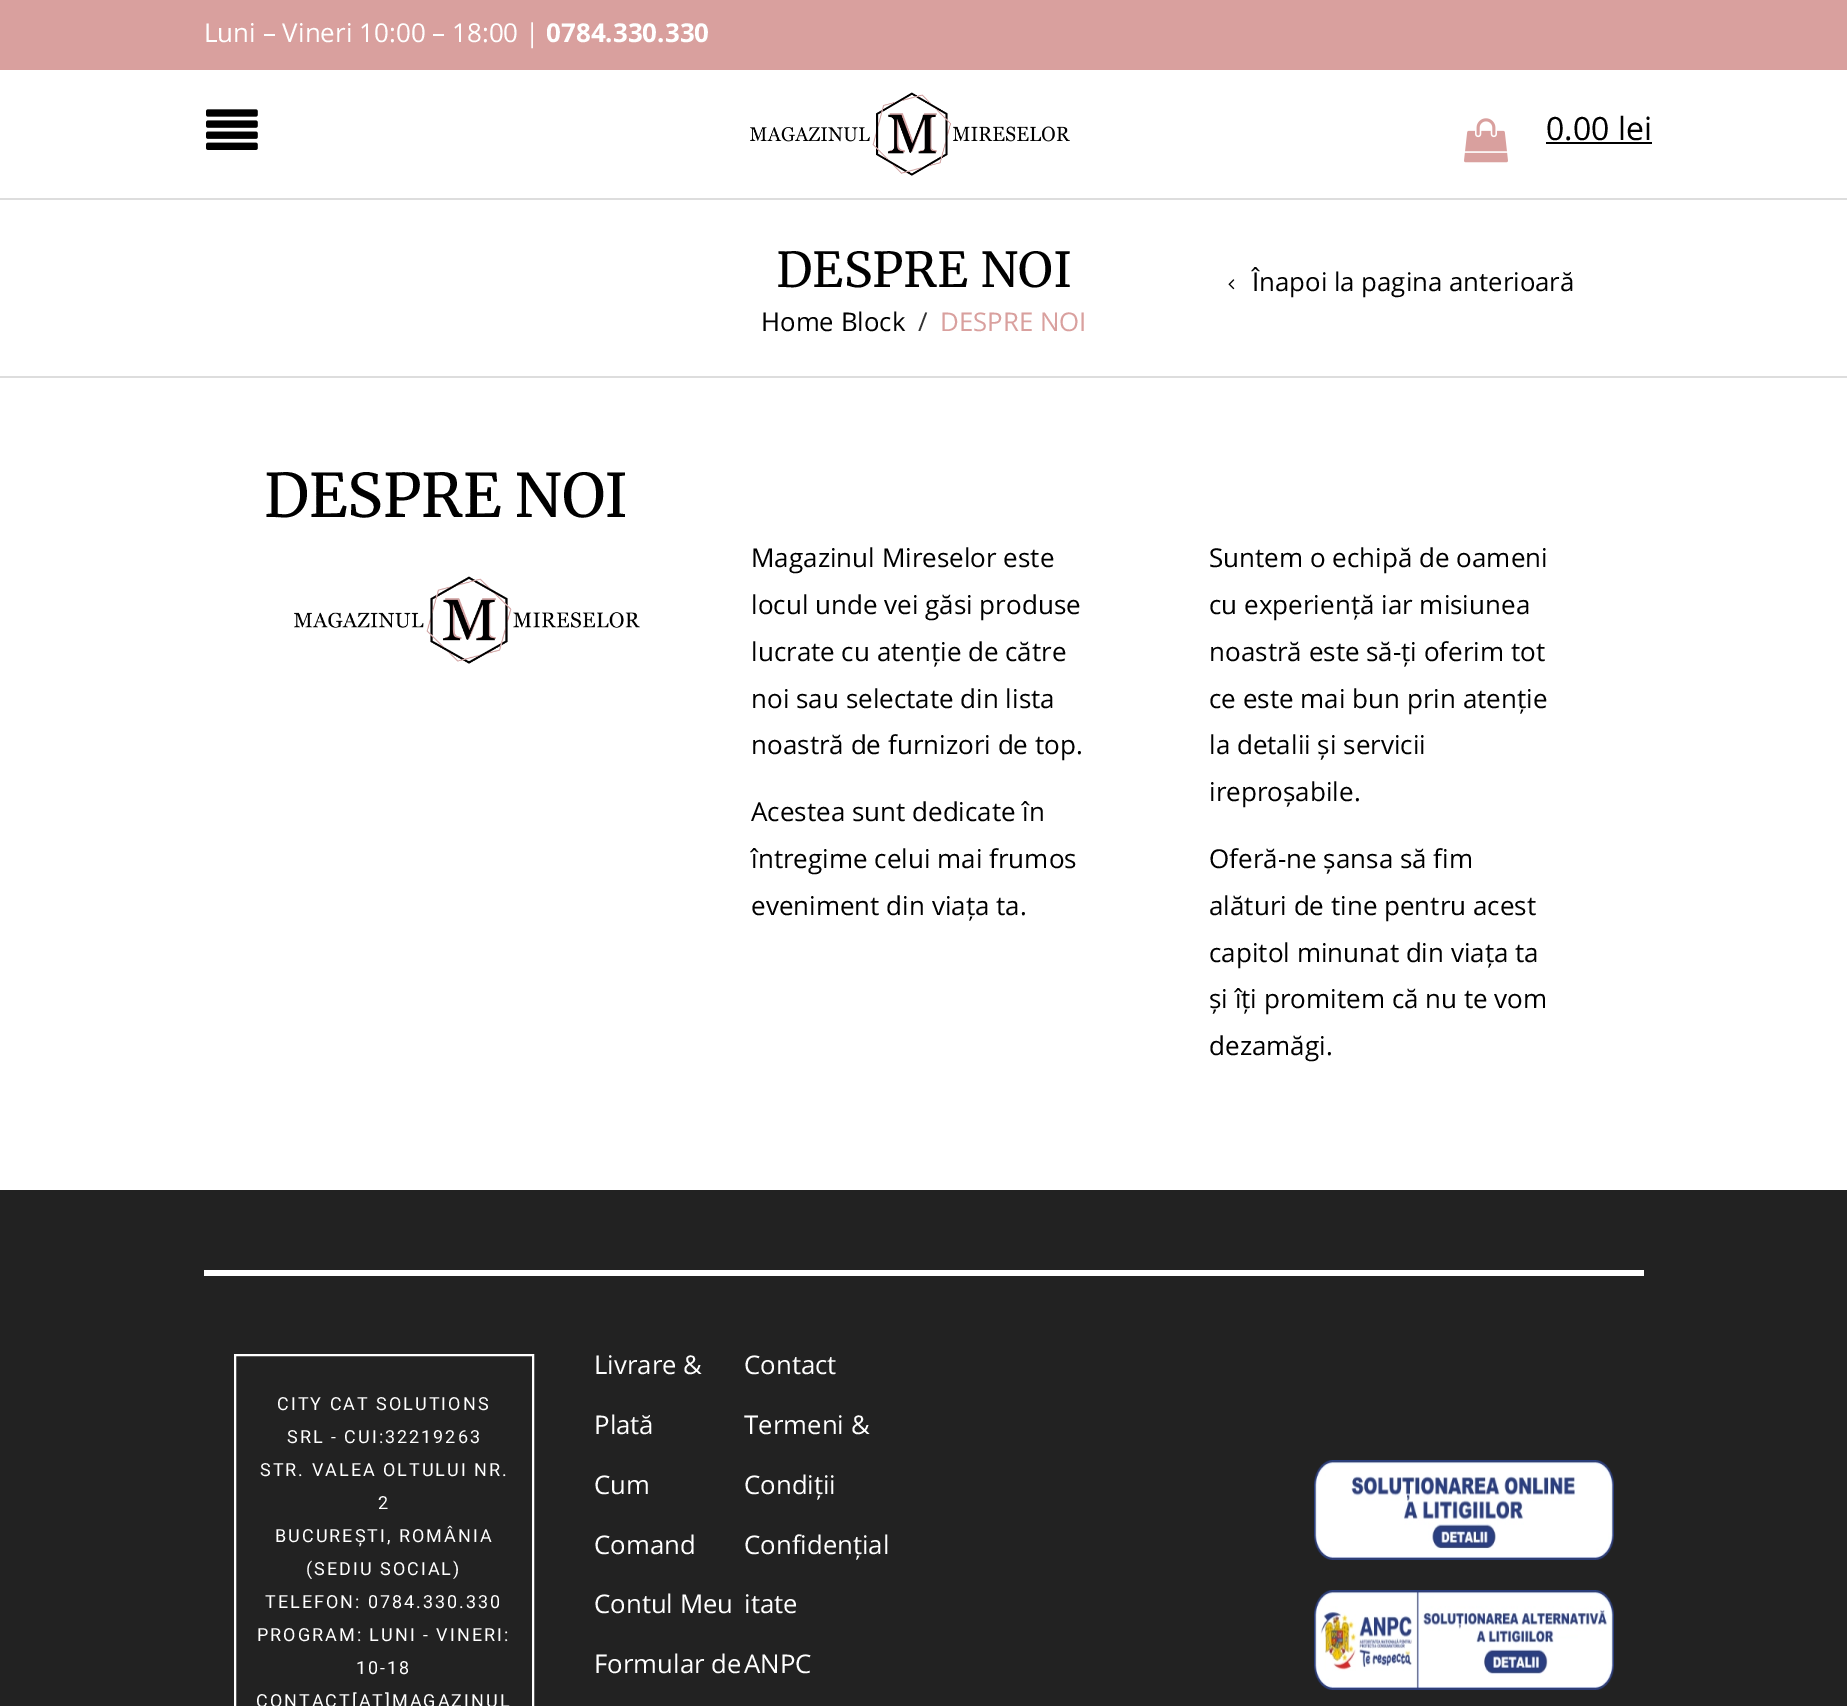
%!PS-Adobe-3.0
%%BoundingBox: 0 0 1847 1706
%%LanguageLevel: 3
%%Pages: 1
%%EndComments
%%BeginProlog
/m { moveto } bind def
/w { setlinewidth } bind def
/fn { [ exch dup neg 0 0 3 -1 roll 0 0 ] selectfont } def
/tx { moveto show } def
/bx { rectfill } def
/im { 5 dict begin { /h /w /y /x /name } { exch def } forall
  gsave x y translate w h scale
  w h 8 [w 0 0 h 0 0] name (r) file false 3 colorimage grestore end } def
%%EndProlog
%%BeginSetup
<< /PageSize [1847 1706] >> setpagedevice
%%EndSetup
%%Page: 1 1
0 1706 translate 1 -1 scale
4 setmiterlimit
1 setgray
0 0 1847 1706 bx
0.851 0.627 0.62 setrgbcolor
0 0 1847 70 bx
/OpenSans-Regular 26 fn
1 setgray
(Luni – Vineri 10:00 – 18:00 |) 204 42 tx
/OpenSans-Bold 26 fn
(0784.330.330) 546 42 tx
(image0.raw) 206 109 52 41 im
(image1.raw) 750 92 320 84 im
(image2.raw) 1464 118 44 45 im
/OpenSans-Regular 32 fn
0 setgray
(0.00 lei) 1546 140 tx
1546 142 106 2 bx
0.867 setgray
0 198 1847 2 bx
0 376 1847 2 bx
/Merriweather-Regular 48 fn
0 setgray
(DESPRE NOI) 776 287 tx
(image3.raw) 1228 279 7 11 im
/OpenSans-Regular 25.75 fn
(Înapoi la pagina anterioară) 1252 291 tx
(Home Block) 761 331 tx
0.2 setgray
(/) 918 331 tx
0.851 0.627 0.62 setrgbcolor
(DESPRE NOI) 940 331 tx
/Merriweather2-Regular 60 fn
0 setgray
(DESPRE NOI) 264 517 tx
(image4.raw) 294 576 346 88 im
/OpenSans-Regular 26 fn
(Magazinul Mireselor este) 751 567 tx
(locul unde vei găsi produse) 751 614 tx
(lucrate cu atenție de către) 751 661 tx
(noi sau selectate din lista) 751 708 tx
(noastră de furnizori de top.) 751 754 tx
(Acestea sunt dedicate în) 751 821 tx
(întregime celui mai frumos) 751 868 tx
(eveniment din viața ta.) 751 915 tx
(Suntem o echipă de oameni) 1209 567 tx
(cu experiență iar misiunea) 1209 614 tx
(noastră este să-ți oferim tot) 1209 661 tx
(ce este mai bun prin atenție) 1209 708 tx
(la detalii și servicii) 1209 754 tx
(ireproșabile.) 1209 801 tx
(Oferă-ne șansa să fim) 1209 868 tx
(alături de tine pentru acest) 1209 915 tx
(capitol minunat din viața ta) 1209 962 tx
(și îți promitem că nu te vom) 1209 1008 tx
(dezamăgi.) 1209 1055 tx
0.133 setgray
0 1190 1847 516 bx
1 setgray
204 1270 1440 6 bx
2 w
235 1355 298 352 rectstroke
/Roboto-Regular 18 fn
277 1410 m 2 0 (CITY CAT SOLUTIONS) ashow
287 1443 m 2 0 (SRL - CUI:32219263) ashow
260 1476 m 2 0 (STR. VALEA OLTULUI NR.) ashow
378 1509 m 2 0 (2) ashow
275 1542 m 2 0 (BUCUREȘTI, ROMÂNIA) ashow
306 1575 m 2 0 (\(SEDIU SOCIAL\)) ashow
265 1608 m 2 0 (TELEFON: 0784.330.330) ashow
257 1641 m 2 0 (PROGRAM: LUNI - VINERI:) ashow
356 1674 m 2 0 (10-18) ashow
256 1707 m 2 0 (CONTACT[AT]MAGAZINUL) ashow
/OpenSans-Regular 25.75 fn
(Livrare &) 594 1374 tx
(Plată) 594 1434 tx
(Cum) 594 1494 tx
(Comand) 594 1554 tx
(Contul Meu) 594 1613 tx
(Formular de) 594 1673 tx
(Contact) 744 1374 tx
(Termeni &) 744 1434 tx
(Condiții) 744 1494 tx
(Confidențial) 744 1554 tx
(itate) 744 1613 tx
(ANPC) 744 1673 tx
(image5.raw) 1314 1460 300 100 im
(image6.raw) 1314 1590 300 100 im
showpage
%%EOF
